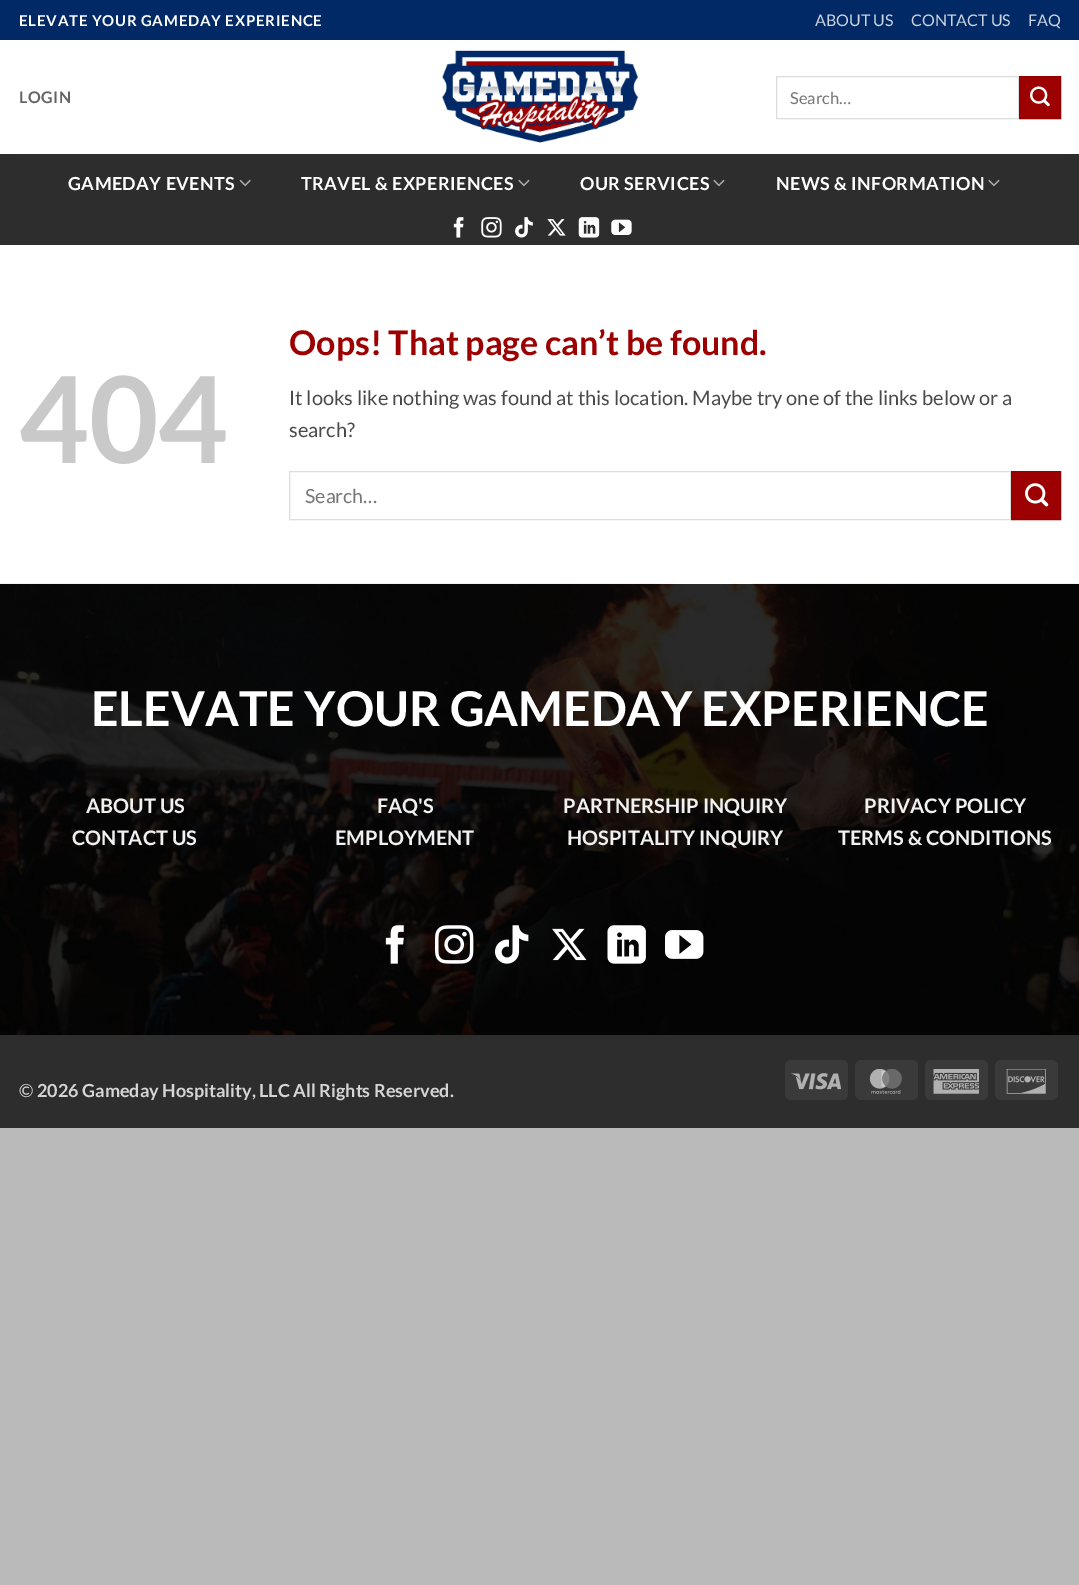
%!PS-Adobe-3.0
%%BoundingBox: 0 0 1079 1585
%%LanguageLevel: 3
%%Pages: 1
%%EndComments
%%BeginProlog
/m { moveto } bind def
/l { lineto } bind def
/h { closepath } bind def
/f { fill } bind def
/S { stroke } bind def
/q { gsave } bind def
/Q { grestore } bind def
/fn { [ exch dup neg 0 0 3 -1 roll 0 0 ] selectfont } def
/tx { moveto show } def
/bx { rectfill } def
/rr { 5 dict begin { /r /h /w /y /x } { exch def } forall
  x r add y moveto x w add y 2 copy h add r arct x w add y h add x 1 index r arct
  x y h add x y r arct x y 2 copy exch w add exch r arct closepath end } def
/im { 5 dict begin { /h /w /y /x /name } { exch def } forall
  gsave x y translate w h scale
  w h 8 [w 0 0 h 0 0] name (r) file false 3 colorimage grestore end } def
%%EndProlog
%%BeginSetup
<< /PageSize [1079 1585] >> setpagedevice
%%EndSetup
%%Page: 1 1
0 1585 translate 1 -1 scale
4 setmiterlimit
0.729 setgray
0 0 1079 1585 bx
1 setgray
0 40 1079 544 bx
0 0.161 0.4 setrgbcolor
0 0 1079 40 bx
/Lato-Bold 15 fn
1 setgray
19 26 m 0.75 0 (ELEVATE YOUR GAMEDAY EXPERIENCE) ashow
/Lato-Regular 16 fn
0.8 0.831 0.878 setrgbcolor
(ABOUT US) 815 26 tx
(CONTACT US) 911 26 tx
(FAQ) 1028 26 tx
/Lato-Bold 16 fn
0.396 setgray
19 103 m 0.5 0 (LOGIN) ashow
(image0.raw) 442 50 196 93 im
0.867 setgray
776.5 76.5 242 42 rectstroke
/Lato-Regular 16.5 fn
0.459 setgray
(Search…) 790 104 tx
0.612 0 0 setrgbcolor
1019.5 76.5 m 1060.5 76.5 l 1060.5 118.5 l 1019.5 118.5 l h q f Q
0.58 0 0 setrgbcolor
S
(image1.raw) 1030 86 20 21 im
0.176 setgray
0 154 1079 91 bx
0.188 setgray
19 154 1042 1 bx
/Lato-Bold 18 fn
1 setgray
68 190 m 0.4 0 (GAMEDAY EVENTS) ashow
(image2.raw) 239 179 12 8 im
301 190 m 0.4 0 (TRAVEL & EXPERIENCES) ashow
(image3.raw) 518 179 12 8 im
580 190 m 0.4 0 (OUR SERVICES) ashow
(image3.raw) 713 179 12 8 im
776 190 m 0.4 0 (NEWS & INFORMATION) ashow
(image3.raw) 988 179 12 8 im
(image4.raw) 453 217 11 21 im
(image5.raw) 481 217 21 21 im
(image6.raw) 515 217 18 21 im
(image7.raw) 547 219 19 17 im
(image8.raw) 578 217 22 21 im
(image9.raw) 611 219 21 16 im
/Lato-Bold 120 fn
0.788 setgray
(404) 19 463 tx
/Lato-Bold 34 fn
0.612 0 0 setrgbcolor
(Oops! That page can’t be found.) 289 355 tx
/Lato-Regular 20 fn
0.29 setgray
(It looks like nothing was found at this location. Maybe try one of the links below or a) 289 405 tx
(search?) 289 437 tx
0.867 setgray
289.5 471.5 721 48 rectstroke
/Lato-Regular 19.5 fn
0.459 setgray
(Search…) 305 503 tx
0.612 0 0 setrgbcolor
1011.5 471.5 m 1060.5 471.5 l 1060.5 519.5 l 1011.5 519.5 l h q f Q
0.58 0 0 setrgbcolor
S
(image10.raw) 1025 483 24 24 im
(image11.raw) 0 583 1079 452 im
/Lato-Bold 48 fn
1 setgray
(ELEVATE YOUR GAMEDAY EXPERIENCE) 91 726 tx
/Lato-Bold 20 fn
0.945 setgray
(ABOUT US) 86 813 tx
(CONTACT US) 72 845 tx
(FAQ'S) 377 813 tx
(EMPLOYMENT) 335 845 tx
(PARTNERSHIP INQUIRY) 563 813 tx
(HOSPITALITY INQUIRY) 567 845 tx
(PRIVACY POLICY) 864 813 tx
(TERMS & CONDITIONS) 838 845 tx
(image12.raw) 385 925 19 39 im
(image13.raw) 435 925 39 39 im
(image14.raw) 495 925 34 39 im
(image15.raw) 552 928 35 33 im
(image16.raw) 607 925 39 39 im
(image17.raw) 665 930 39 29 im
0.176 setgray
0 1035 1079 93 bx
/Lato-Regular 18 fn
0.835 setgray
(©) 19 1097 tx
/Lato-Bold 18 fn
(2026 Gameday Hospitality, LLC All Rights Reserved.) 37 1097 tx
0.227 setgray
785 1060 63 40 6 rr f
(image18.raw) 791 1073 50 17 im
855 1060 63 40 6 rr f
(image19.raw) 869 1069 33 25 im
925 1060 63 40 6 rr f
(image20.raw) 933 1069 46 25 im
995 1060 63 40 6 rr f
(image21.raw) 1006 1069 40 25 im
showpage
%%EOF
